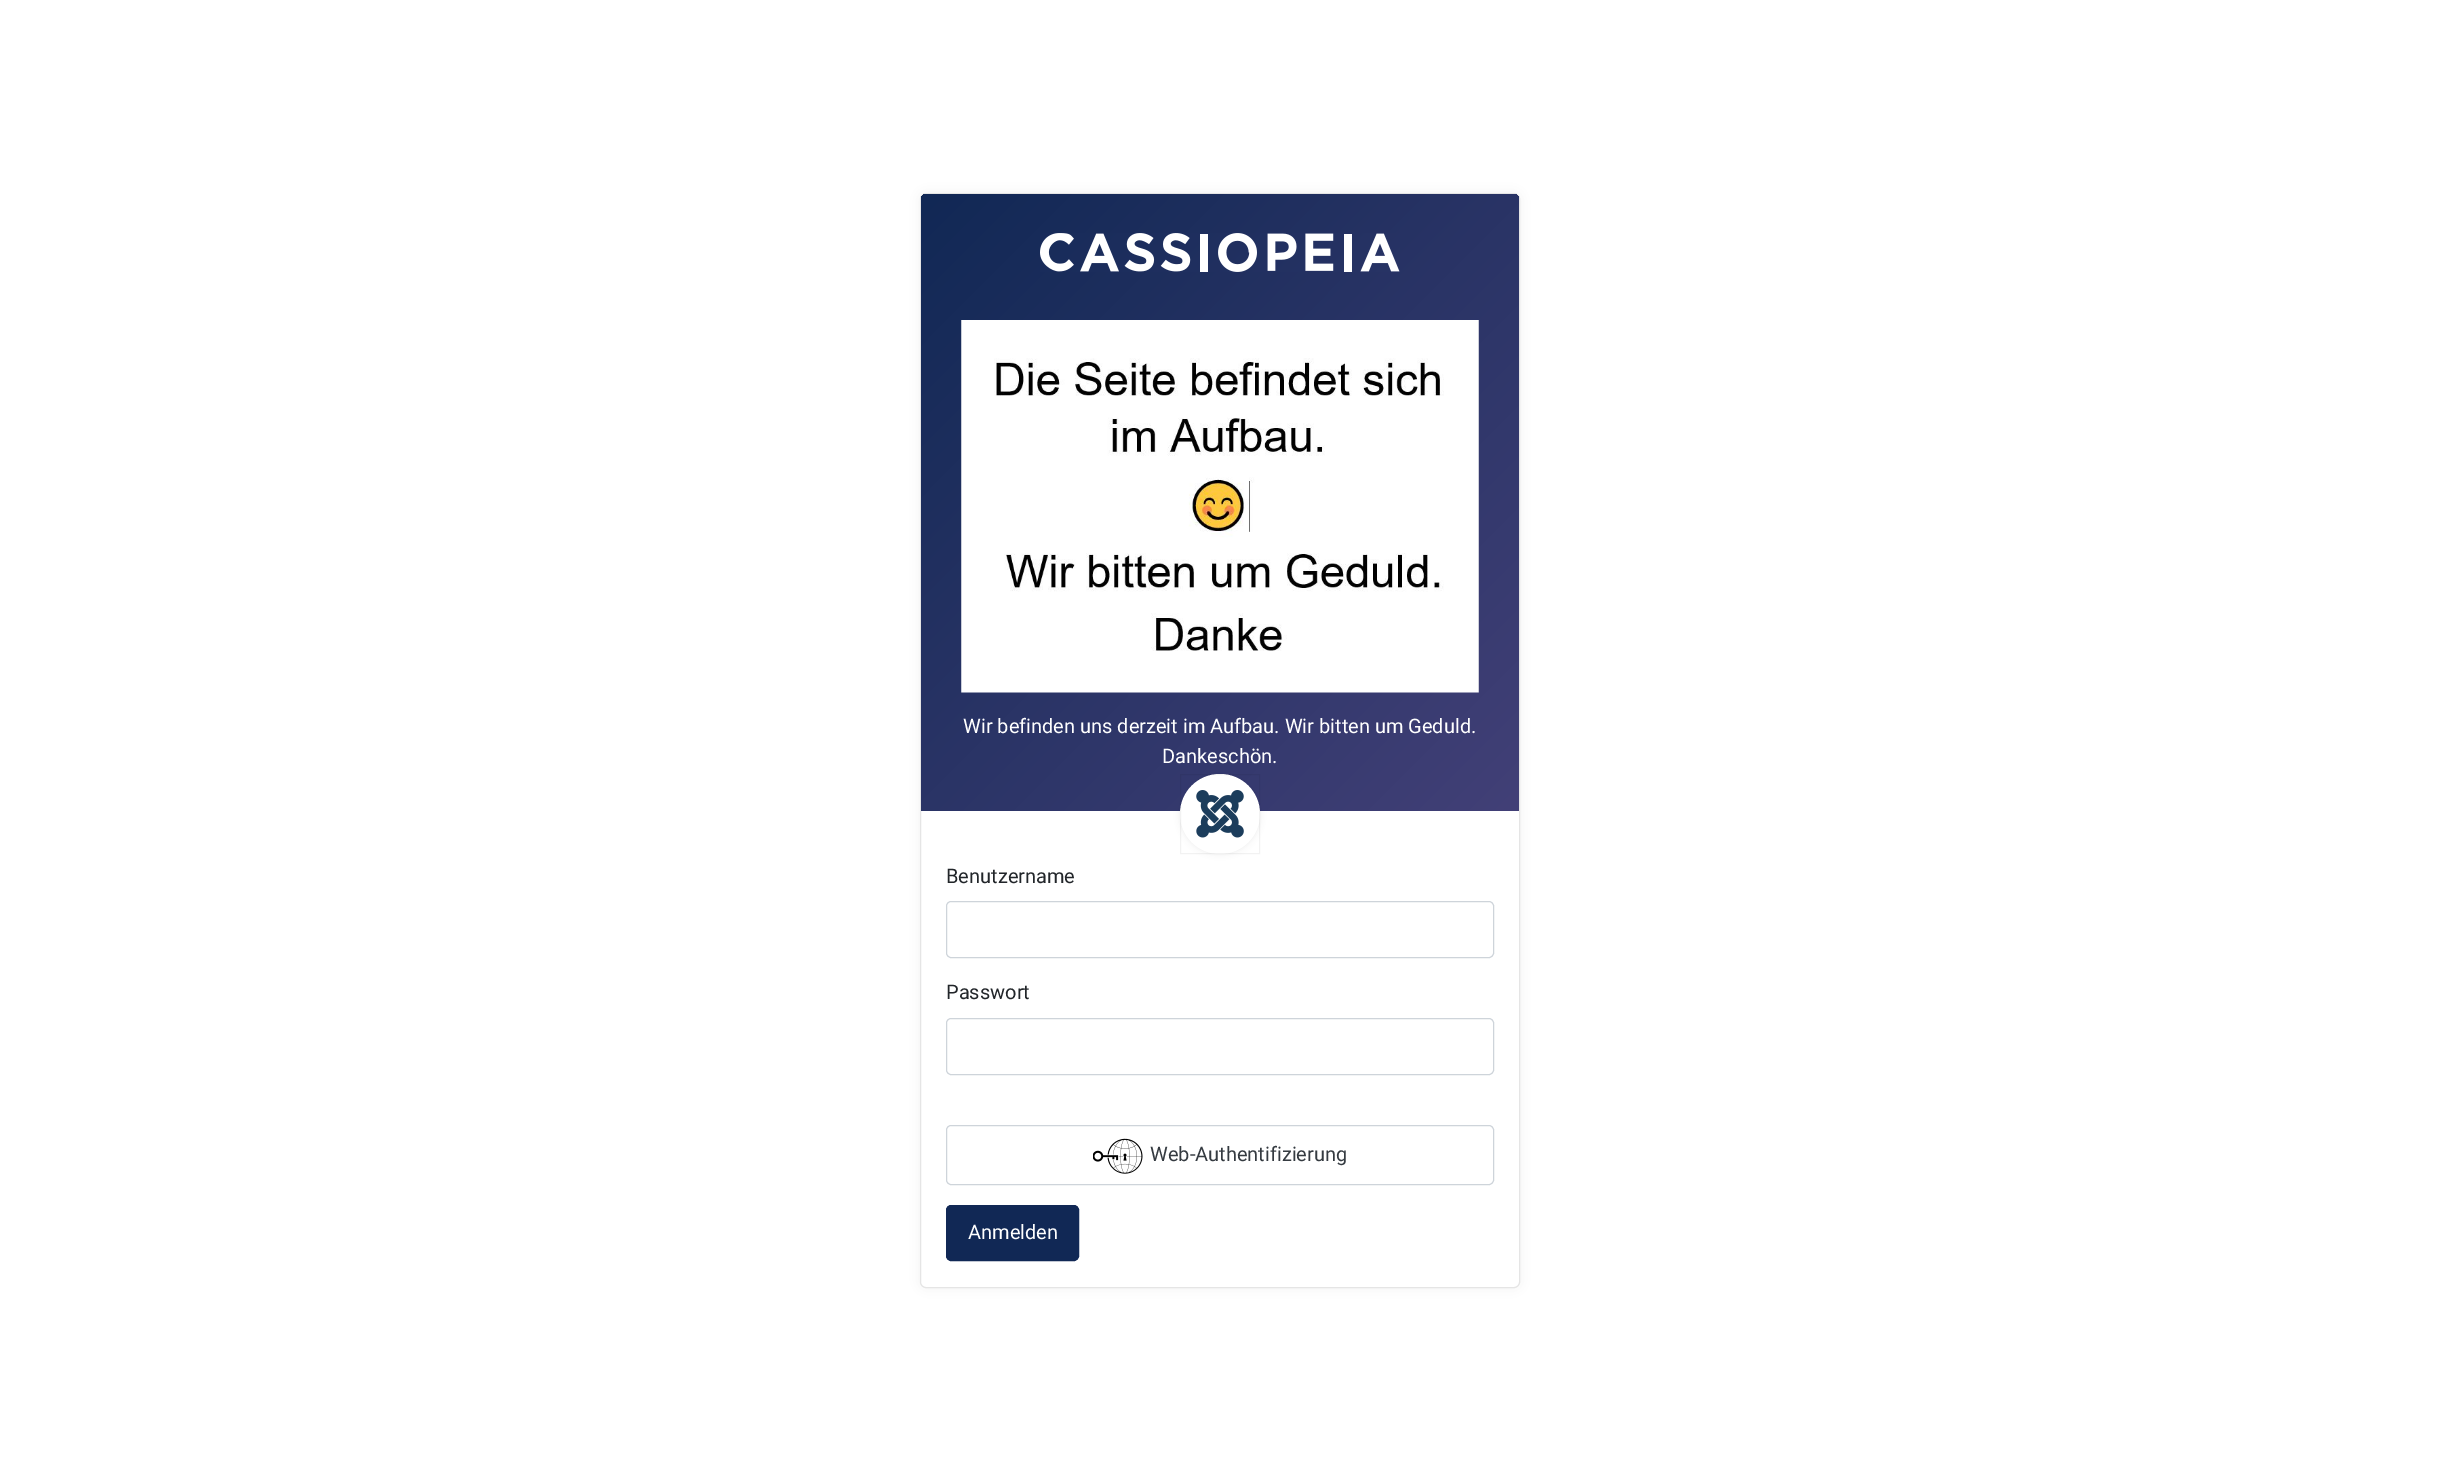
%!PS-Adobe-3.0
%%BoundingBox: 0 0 2439 1480
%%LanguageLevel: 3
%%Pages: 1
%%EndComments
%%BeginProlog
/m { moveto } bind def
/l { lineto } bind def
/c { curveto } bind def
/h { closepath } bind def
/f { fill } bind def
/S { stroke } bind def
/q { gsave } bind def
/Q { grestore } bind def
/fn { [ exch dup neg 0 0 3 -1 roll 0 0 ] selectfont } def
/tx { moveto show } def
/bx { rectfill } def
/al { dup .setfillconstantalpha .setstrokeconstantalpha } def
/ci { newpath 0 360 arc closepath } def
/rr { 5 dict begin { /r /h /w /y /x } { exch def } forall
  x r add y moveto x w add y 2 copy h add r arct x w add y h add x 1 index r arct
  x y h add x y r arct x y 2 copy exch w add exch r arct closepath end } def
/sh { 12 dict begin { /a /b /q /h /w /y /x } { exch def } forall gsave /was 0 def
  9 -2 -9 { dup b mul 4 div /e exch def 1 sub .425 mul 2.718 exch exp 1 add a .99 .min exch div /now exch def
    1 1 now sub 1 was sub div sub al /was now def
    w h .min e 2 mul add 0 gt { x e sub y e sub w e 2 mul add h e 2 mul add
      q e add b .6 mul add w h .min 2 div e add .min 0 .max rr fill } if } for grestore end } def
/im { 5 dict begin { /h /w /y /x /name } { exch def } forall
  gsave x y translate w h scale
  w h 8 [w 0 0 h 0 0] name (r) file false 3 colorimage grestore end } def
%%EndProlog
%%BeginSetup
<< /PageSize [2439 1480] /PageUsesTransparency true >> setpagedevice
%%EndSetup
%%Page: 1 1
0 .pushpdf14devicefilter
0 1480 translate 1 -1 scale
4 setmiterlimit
1 setgray
0 0 2439 1480 bx
0 setgray
920 193 600 1095 6 6 0.05 sh
1 setgray
920.5 193.5 599 1094 5.5 rr q f Q
0.898 setgray
S
q 927 194 m 1513 194 l 1516.5 194 1519 196.5 1519 200 c 1519 811 l 921 811 l 921 200 l 921 196.5 923.5 194 927 194 c h clip newpath
<< /ShadingType 2 /ColorSpace /DeviceRGB /Coords [916 199 1524 806] /Extend [true true] /Function << /FunctionType 2 /Domain [0 1] /C0 [0.067 0.157 0.333] /C1 [0.259 0.251 0.467] /N 1 >> >> shfill Q
(image0.raw) 1040 233 360 39 im
(image1.raw) 961 320 518 373 im
/Roboto-Regular 20 fn
1 setgray
(Wir befinden uns derzeit im Aufbau. Wir bitten um Geduld.) 963 733 tx
(Dankeschön.) 1162 763 tx
0 setgray
1180 774 80 80 40 3 0.07 sh
1 setgray
1220 814 40 ci f
0.05 al
0 setgray
1180.5 774.5 79 79 rectstroke
1 al
(image2.raw) 1196 790 48 48 im
0.133 0.149 0.165 setrgbcolor
(Benutzername) 946 883 tx
0.808 0.831 0.855 setrgbcolor
946.5 901.5 547 56 4.5 rr S
0.133 0.149 0.165 setrgbcolor
(Passwort) 946 999 tx
0.808 0.831 0.855 setrgbcolor
946.5 1018.5 547 56 4.5 rr S
946.5 1125.5 547 59 4.5 rr S
(image3.raw) 1093 1138 50 36 im
0.208 0.231 0.255 setrgbcolor
(Web-Authentifizierung) 1150 1161 tx
0.067 0.157 0.333 setrgbcolor
946.5 1205.5 132 55 4.5 rr q f Q
S
1 setgray
(Anmelden) 968 1239 tx
.poppdf14devicefilter showpage
%%EOF
